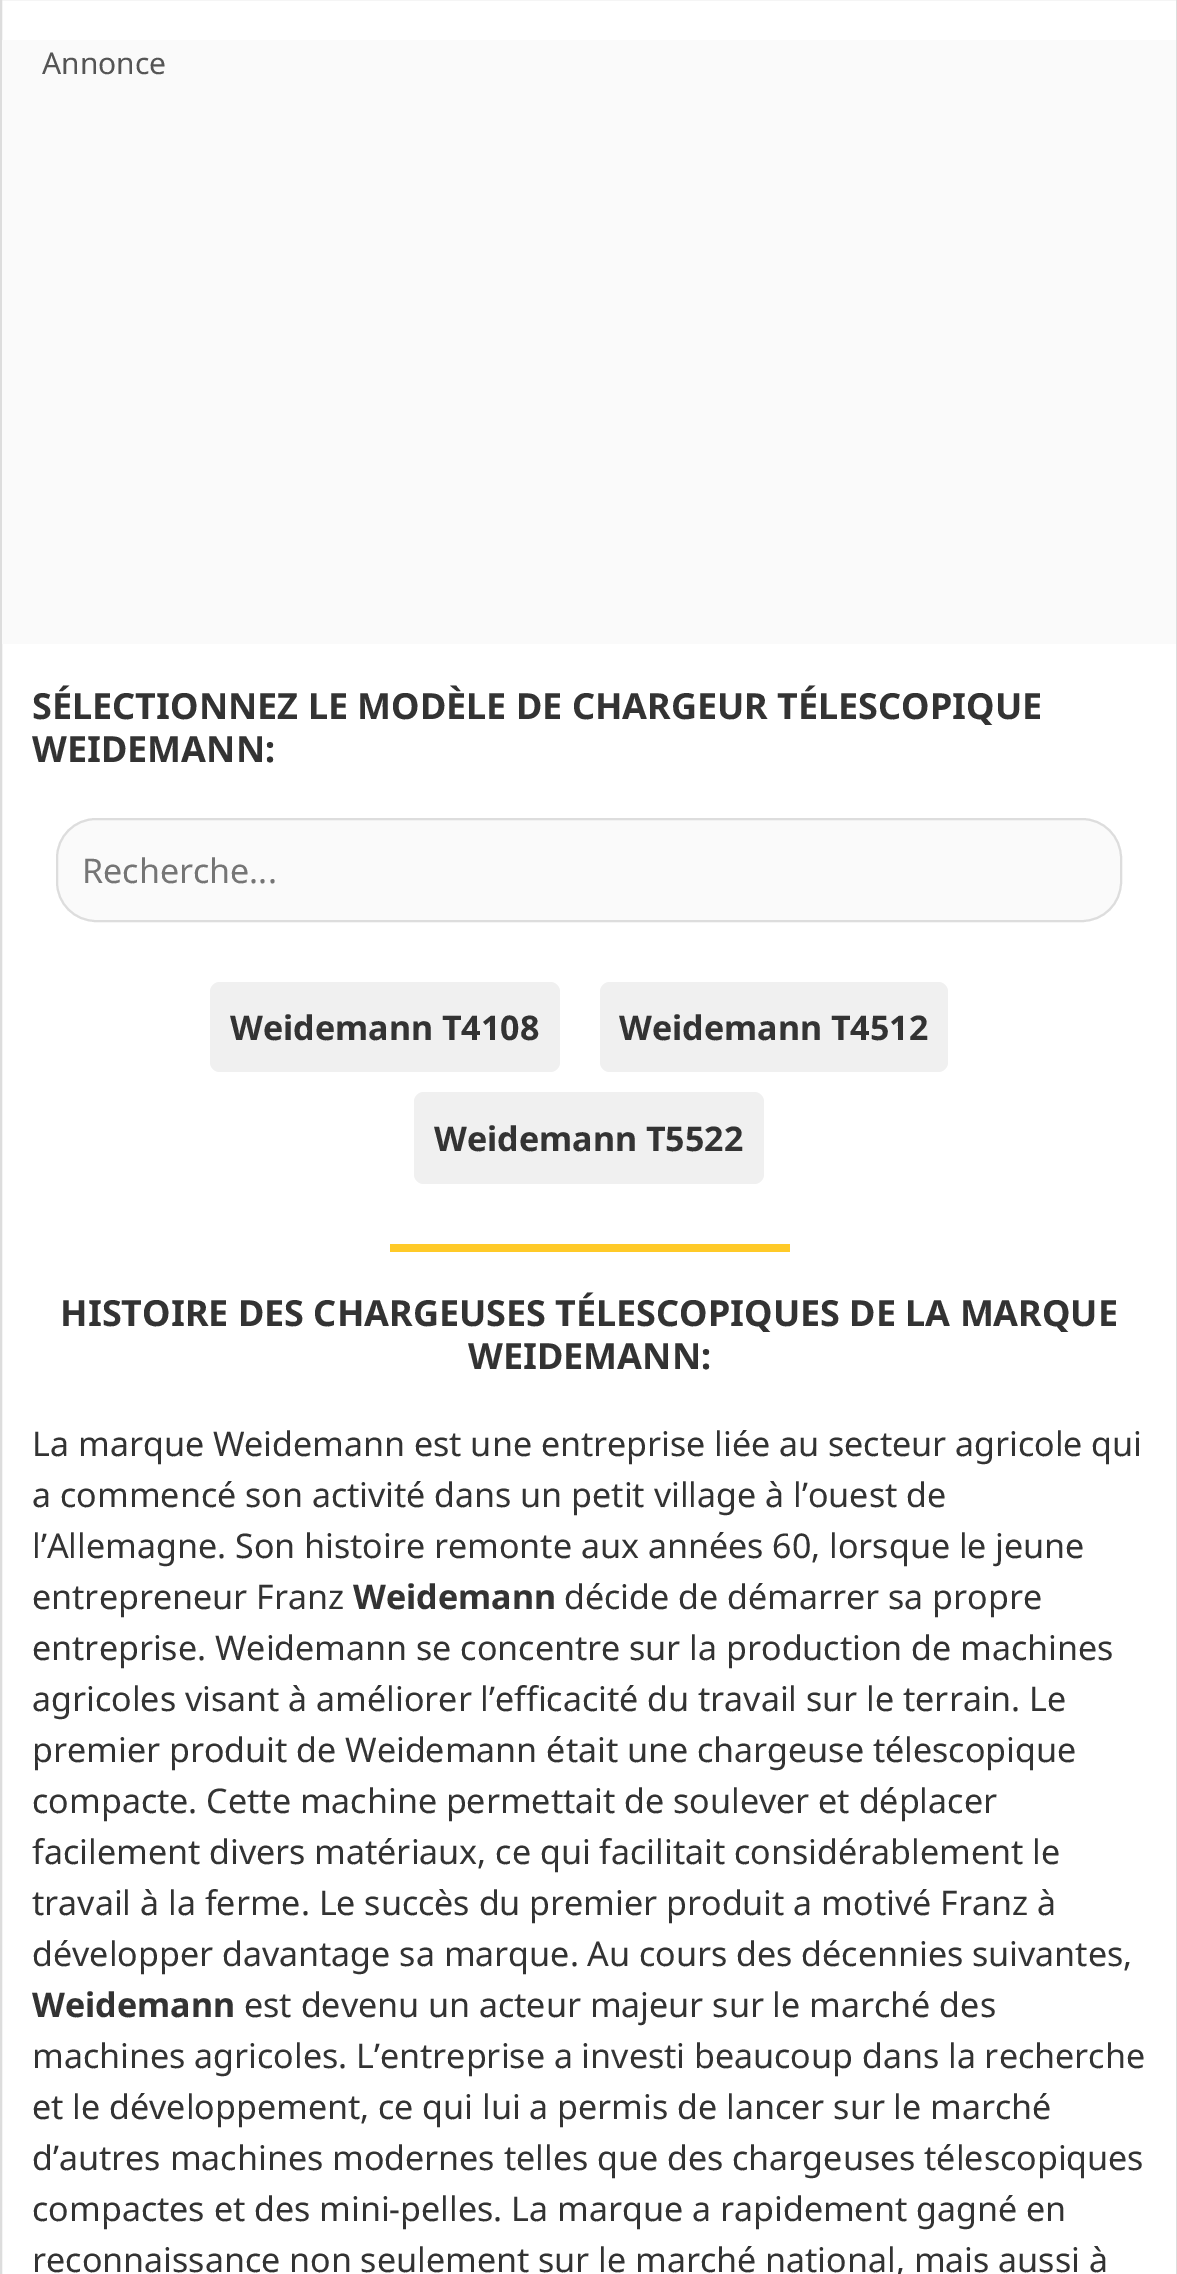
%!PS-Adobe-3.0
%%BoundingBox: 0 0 1177 2274
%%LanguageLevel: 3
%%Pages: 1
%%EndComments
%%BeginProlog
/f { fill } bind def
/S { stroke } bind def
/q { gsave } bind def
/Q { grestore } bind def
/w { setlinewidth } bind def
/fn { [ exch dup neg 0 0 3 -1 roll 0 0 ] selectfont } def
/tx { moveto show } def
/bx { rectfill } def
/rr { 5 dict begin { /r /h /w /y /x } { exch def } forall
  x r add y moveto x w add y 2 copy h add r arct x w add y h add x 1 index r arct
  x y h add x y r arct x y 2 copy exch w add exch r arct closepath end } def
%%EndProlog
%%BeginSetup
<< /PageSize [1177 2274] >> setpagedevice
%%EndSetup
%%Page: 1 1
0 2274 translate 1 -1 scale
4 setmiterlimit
1 setgray
0 0 1177 2274 bx
0.867 setgray
2 w
1 -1 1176 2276 rectstroke
0.98 setgray
2 40 1174 604 bx
/NotoSans-Regular 30 fn
0.333 setgray
(Annonce) 42 74 tx
/NotoSans-Bold 36 fn
0.2 setgray
(SÉLECTIONNEZ LE MODÈLE DE CHARGEUR TÉLESCOPIQUE) 32 719 tx
(WEIDEMANN:) 32 762 tx
0.98 setgray
57 819 1064 102 39 rr q f Q
0.867 setgray
S
/NotoSans-Regular 34 fn
0.459 setgray
(Recherche...) 82 883 tx
0.941 setgray
210 982 350 90 10 rr f
/NotoSans-Bold 34 fn
0.2 setgray
(Weidemann T4108) 230 1040 tx
0.941 setgray
600 982 348 90 10 rr f
0.2 setgray
(Weidemann T4512) 619 1040 tx
0.941 setgray
414 1092 350 92 10 rr f
0.2 setgray
(Weidemann T5522) 434 1151 tx
1 0.792 0.157 setrgbcolor
390 1244 400 8 bx
/NotoSans-Bold 36 fn
0.2 setgray
(HISTOIRE DES CHARGEUSES TÉLESCOPIQUES DE LA MARQUE) 60 1326 tx
(WEIDEMANN:) 468 1369 tx
/NotoSans-Regular 34 fn
(La marque Weidemann est une entreprise liée au secteur agricole qui) 32 1456 tx
(a commencé son activité dans un petit village à l’ouest de) 32 1507 tx
(l’Allemagne. Son histoire remonte aux années 60, lorsque le jeune) 32 1558 tx
(entrepreneur Franz) 32 1609 tx
/NotoSans-Bold 34 fn
(Weidemann) 353 1609 tx
/NotoSans-Regular 34 fn
(décide de démarrer sa propre) 564 1609 tx
(entreprise. Weidemann se concentre sur la production de machines) 32 1660 tx
(agricoles visant à améliorer l’efficacité du travail sur le terrain. Le) 32 1711 tx
(premier produit de Weidemann était une chargeuse télescopique) 32 1762 tx
(compacte. Cette machine permettait de soulever et déplacer) 32 1813 tx
(facilement divers matériaux, ce qui facilitait considérablement le) 32 1864 tx
(travail à la ferme. Le succès du premier produit a motivé Franz à) 32 1915 tx
(développer davantage sa marque. Au cours des décennies suivantes,) 32 1966 tx
/NotoSans-Bold 34 fn
(Weidemann) 32 2017 tx
/NotoSans-Regular 34 fn
(est devenu un acteur majeur sur le marché des) 244 2017 tx
(machines agricoles. L’entreprise a investi beaucoup dans la recherche) 32 2068 tx
(et le développement, ce qui lui a permis de lancer sur le marché) 32 2119 tx
(d’autres machines modernes telles que des chargeuses télescopiques) 32 2170 tx
(compactes et des mini-pelles. La marque a rapidement gagné en) 32 2221 tx
(reconnaissance non seulement sur le marché national, mais aussi à) 32 2272 tx
showpage
%%EOF
